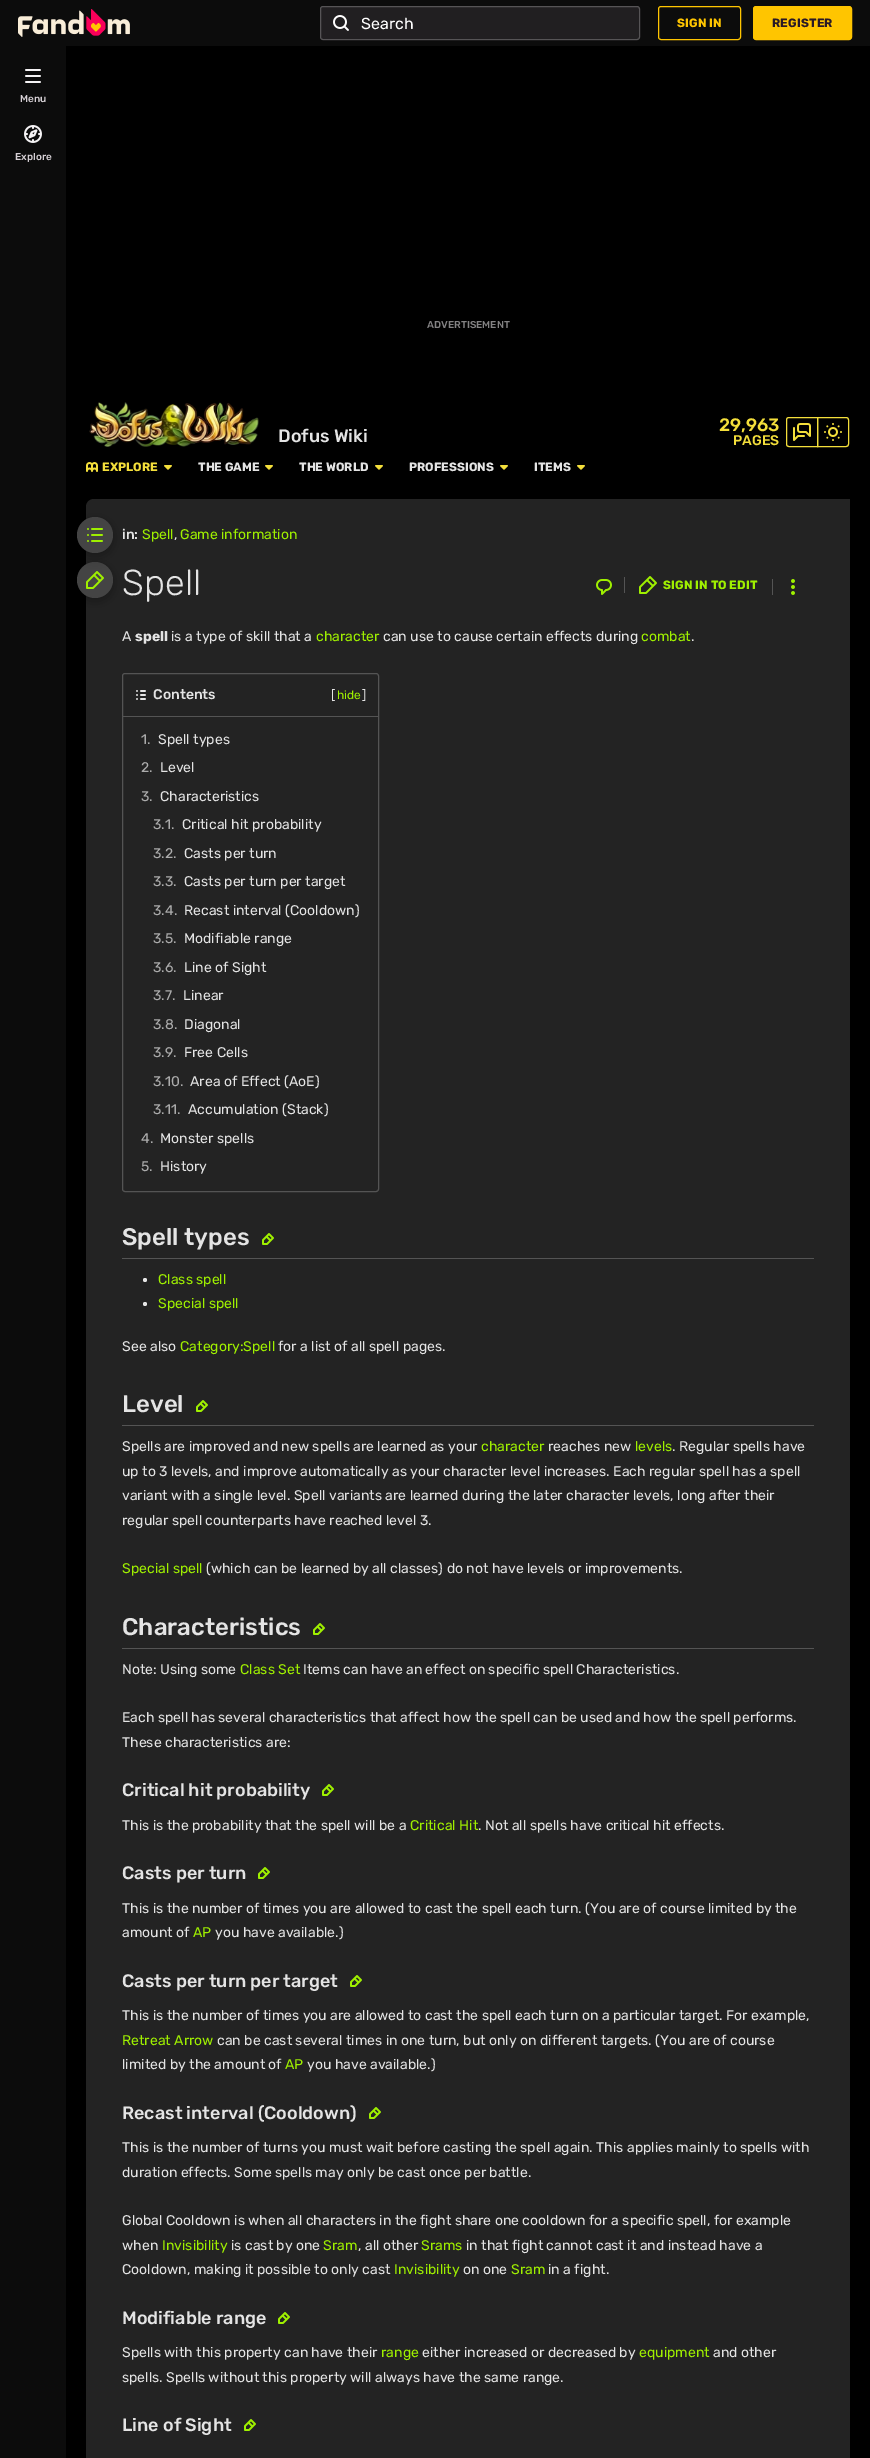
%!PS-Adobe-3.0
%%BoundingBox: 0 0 870 2458
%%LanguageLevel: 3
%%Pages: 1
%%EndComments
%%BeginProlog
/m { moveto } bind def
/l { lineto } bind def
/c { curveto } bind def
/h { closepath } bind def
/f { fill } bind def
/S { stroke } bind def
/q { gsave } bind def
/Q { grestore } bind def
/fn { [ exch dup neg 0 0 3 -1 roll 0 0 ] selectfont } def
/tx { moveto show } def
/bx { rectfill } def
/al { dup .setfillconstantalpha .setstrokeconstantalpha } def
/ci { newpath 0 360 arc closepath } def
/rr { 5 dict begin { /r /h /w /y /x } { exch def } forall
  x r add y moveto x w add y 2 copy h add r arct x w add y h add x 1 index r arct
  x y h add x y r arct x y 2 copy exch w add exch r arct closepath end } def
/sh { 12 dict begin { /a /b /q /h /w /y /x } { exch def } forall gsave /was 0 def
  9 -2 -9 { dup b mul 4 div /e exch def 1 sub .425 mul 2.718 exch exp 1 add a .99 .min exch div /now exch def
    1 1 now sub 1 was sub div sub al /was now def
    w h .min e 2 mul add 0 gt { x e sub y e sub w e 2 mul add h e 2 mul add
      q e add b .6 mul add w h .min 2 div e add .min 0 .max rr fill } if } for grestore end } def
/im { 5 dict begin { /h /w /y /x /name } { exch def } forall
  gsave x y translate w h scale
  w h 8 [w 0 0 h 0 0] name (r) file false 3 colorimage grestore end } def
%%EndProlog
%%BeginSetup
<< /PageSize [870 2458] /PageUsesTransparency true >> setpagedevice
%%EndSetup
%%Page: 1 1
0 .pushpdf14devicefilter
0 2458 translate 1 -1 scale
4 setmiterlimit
0 setgray
0 0 870 2458 bx
0.047 setgray
0 0 870 46 bx
(image0.raw) 18 9 112 28 im
0.129 0.122 0.129 setrgbcolor
320 6 320 34 3 rr f
0.25 al
0.961 0.953 0.961 setrgbcolor
320.5 6.5 319 33 2.5 rr S
1 al
(image1.raw) 333 15 16 16 im
/Rubik-Regular 16 fn
1 setgray
(Search) 361 29 tx
1 0.773 0 setrgbcolor
658.5 6.5 82 33 2.5 rr S
/Rubik-Bold 12 fn
677 27 m 0.1 0 (SIGN IN) ashow
753.5 6.5 98 33 2.5 rr q f Q
S
0.161 0.098 0.153 setrgbcolor
772 27 m 0.1 0 (REGISTER) ashow
0.137 setgray
94 499 m 850 499 l 850 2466 l 86 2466 l 86 507 l 86 502.5 89.5 499 94 499 c h f
0 setgray
77 565 36 36 18 6 0.3 sh
0.267 setgray
95 580 18 ci f
(image10.raw) 86 571 18 18 im
0 setgray
77 520 36 36 18 6 0.3 sh
0.047 setgray
0 46 66 2412 bx
(image2.raw) 25 69 16 14 im
/Rubik-Medium 10 fn
0.839 0.816 0.835 setrgbcolor
(Menu) 20 102 tx
(image3.raw) 24 125 18 18 im
(Explore) 15 160 tx
0.514 0.51 0.514 setrgbcolor
(ADVERTISEMENT) 427 328 tx
(image4.raw) 89 402 170 45 im
/Rubik-Medium 18 fn
0.894 setgray
(Dofus Wiki) 278 442 tx
0.957 0.875 0.231 setrgbcolor
(29,963) 719 431 tx
/Rubik-Medium 14 fn
(PAGES) 733 445 tx
789 417.5 m 817.5 417.5 l 817.5 446.5 l 789 446.5 l 787.5 446.5 786.5 445.5 786.5 444 c 786.5 420 l 786.5 418.5 787.5 417.5 789 417.5 c h S
(image5.raw) 793 423 18 18 im
817.5 417.5 m 846 417.5 l 847.5 417.5 848.5 418.5 848.5 420 c 848.5 444 l 848.5 445.5 847.5 446.5 846 446.5 c 817.5 446.5 l h S
(image6.raw) 824 423 18 18 im
(image7.raw) 86 462 12 10 im
/Rubik-Bold 12 fn
(EXPLORE) 102 471 tx
(image8.raw) 164 465 8 5 im
0.894 setgray
(THE GAME) 198 471 tx
(image8.raw) 265 465 8 5 im
(THE WORLD) 299 471 tx
(image8.raw) 375 465 8 5 im
(PROFESSIONS) 409 471 tx
(image8.raw) 500 465 8 5 im
(ITEMS) 534 471 tx
(image8.raw) 577 465 8 5 im
0.267 setgray
95 535 18 ci f
(image9.raw) 87 528 16 14 im
/Rubik-Medium 14 fn
0.894 setgray
(in:) 122 539 tx
/Rubik-Regular 14 fn
0.624 0.941 0 setrgbcolor
(Spell) 142 539 tx
0.894 setgray
(,) 174 539 tx
0.624 0.941 0 setrgbcolor
(Game information) 180 539 tx
/Rubik-Light 36 fn
0.894 setgray
122 595 m 0.25 0 (Spell) ashow
(image11.raw) 596 579 16 16 im
0.329 setgray
624 577 1 16 bx
(image12.raw) 639 576 18 18 im
/Rubik-Bold 12 fn
0.624 0.941 0 setrgbcolor
663 589 m 0.1 0 (SIGN IN TO EDIT) ashow
0.329 setgray
772 579 1 16 bx
(image13.raw) 791 579 4 16 im
/Rubik-Regular 14 fn
0.894 setgray
(A) 122 641 tx
/Rubik-Bold 14 fn
(spell) 135 641 tx
/Rubik-Regular 14 fn
(is a type of skill that a) 171 641 tx
0.624 0.941 0 setrgbcolor
(character) 316 641 tx
0.894 setgray
(can use to cause certain effects during) 383 641 tx
0.624 0.941 0 setrgbcolor
(combat) 641 641 tx
0.894 setgray
(.) 691 641 tx
0.329 setgray
122.5 673.5 256 518 2.5 rr S
123 716 255 1 bx
(image14.raw) 136 690 10 10 im
/Rubik-Medium 14 fn
0.894 setgray
(Contents) 153 699 tx
/Rubik-Regular 13 fn
([) 331 699 tx
/Rubik-Regular 12 fn
0.624 0.941 0 setrgbcolor
(hide) 337 699 tx
/Rubik-Regular 13 fn
0.894 setgray
(]) 362 699 tx
/Rubik-Regular 14 fn
0.675 setgray
(1.) 141 744 tx
0.894 setgray
(Spell types) 158 744 tx
0.675 setgray
(2.) 141 772 tx
0.894 setgray
(Level) 160 772 tx
0.675 setgray
(3.) 141 801 tx
0.894 setgray
(Characteristics) 160 801 tx
0.675 setgray
(3.1.) 153 829 tx
0.894 setgray
(Critical hit probability) 182 829 tx
0.675 setgray
(3.2.) 153 858 tx
0.894 setgray
(Casts per turn) 184 858 tx
0.675 setgray
(3.3.) 153 886 tx
0.894 setgray
(Casts per turn per target) 184 886 tx
0.675 setgray
(3.4.) 153 915 tx
0.894 setgray
(Recast interval \(Cooldown\)) 184 915 tx
0.675 setgray
(3.5.) 153 943 tx
0.894 setgray
(Modifiable range) 184 943 tx
0.675 setgray
(3.6.) 153 972 tx
0.894 setgray
(Line of Sight) 184 972 tx
0.675 setgray
(3.7.) 153 1000 tx
0.894 setgray
(Linear) 183 1000 tx
0.675 setgray
(3.8.) 153 1029 tx
0.894 setgray
(Diagonal) 184 1029 tx
0.675 setgray
(3.9.) 153 1057 tx
0.894 setgray
(Free Cells) 184 1057 tx
0.675 setgray
(3.10.) 153 1086 tx
0.894 setgray
(Area of Effect \(AoE\)) 190 1086 tx
0.675 setgray
(3.11.) 153 1114 tx
0.894 setgray
(Accumulation \(Stack\)) 188 1114 tx
0.675 setgray
(4.) 141 1143 tx
0.894 setgray
(Monster spells) 160 1143 tx
0.675 setgray
(5.) 141 1171 tx
0.894 setgray
(History) 160 1171 tx
0.329 setgray
122 1258 692 1 bx
/Rubik-Medium 24 fn
0.894 setgray
(Spell types) 122 1245 tx
(image15.raw) 262 1233 12 12 im
0.902 setgray
145 1280 2 ci f
/Rubik-Regular 14 fn
0.624 0.941 0 setrgbcolor
(Class spell) 158 1284 tx
0.902 setgray
145 1304 2 ci f
0.624 0.941 0 setrgbcolor
(Special spell) 158 1308 tx
0.894 setgray
(See also) 122 1351 tx
0.624 0.941 0 setrgbcolor
(Category:Spell) 180 1351 tx
0.894 setgray
(for a list of all spell pages.) 278 1351 tx
0.329 setgray
122 1425 692 1 bx
/Rubik-Medium 24 fn
0.894 setgray
(Level) 122 1412 tx
(image15.raw) 196 1400 12 12 im
/Rubik-Regular 14 fn
(Spells are improved and new spells are learned as your) 122 1451 tx
0.624 0.941 0 setrgbcolor
(character) 481 1451 tx
0.894 setgray
(reaches new) 548 1451 tx
0.624 0.941 0 setrgbcolor
(levels) 635 1451 tx
0.894 setgray
(. Regular spells have) 672 1451 tx
(up to 3 levels, and improve automatically as your character level increases. Each regular spell has a spell) 122 1476 tx
(variant with a single level. Spell variants are learned during the later character levels, long after their) 122 1500 tx
(regular spell counterparts have reached level 3.) 122 1525 tx
0.624 0.941 0 setrgbcolor
(Special spell) 122 1573 tx
0.894 setgray
(\(which can be learned by all classes\) do not have levels or improvements.) 206 1573 tx
0.329 setgray
122 1648 692 1 bx
/Rubik-Medium 24 fn
0.894 setgray
(Characteristics) 122 1635 tx
(image15.raw) 313 1623 12 12 im
/Rubik-Regular 14 fn
(Note: Using some) 122 1674 tx
0.624 0.941 0 setrgbcolor
(Class Set) 240 1674 tx
0.894 setgray
(Items can have an effect on specific spell Characteristics.) 303 1674 tx
(Each spell has several characteristics that affect how the spell can be used and how the spell performs.) 122 1722 tx
(These characteristics are:) 122 1747 tx
/Rubik-Medium 18 fn
(Critical hit probability) 122 1796 tx
(image15.raw) 322 1784 12 12 im
/Rubik-Regular 14 fn
(This is the probability that the spell will be a) 122 1830 tx
0.624 0.941 0 setrgbcolor
(Critical Hit) 410 1830 tx
0.894 setgray
(. Not all spells have critical hit effects.) 478 1830 tx
/Rubik-Medium 18 fn
(Casts per turn) 122 1879 tx
(image15.raw) 258 1867 12 12 im
/Rubik-Regular 14 fn
(This is the number of times you are allowed to cast the spell each turn. \(You are of course limited by the) 122 1913 tx
(amount of) 122 1937 tx
0.624 0.941 0 setrgbcolor
(AP) 193 1937 tx
0.894 setgray
(you have available.\)) 215 1937 tx
/Rubik-Medium 18 fn
(Casts per turn per target) 122 1987 tx
(image15.raw) 350 1975 12 12 im
/Rubik-Regular 14 fn
(This is the number of times you are allowed to cast the spell each turn on a particular target. For example,) 122 2020 tx
0.624 0.941 0 setrgbcolor
(Retreat Arrow) 122 2045 tx
0.894 setgray
(can be cast several times in one turn, but only on different targets. \(You are of course) 217 2045 tx
(limited by the amount of) 122 2069 tx
0.624 0.941 0 setrgbcolor
(AP) 285 2069 tx
0.894 setgray
(you have available.\)) 307 2069 tx
/Rubik-Medium 18 fn
(Recast interval \(Cooldown\)) 122 2119 tx
(image15.raw) 369 2107 12 12 im
/Rubik-Regular 14 fn
(This is the number of turns you must wait before casting the spell again. This applies mainly to spells with) 122 2152 tx
(duration effects. Some spells may only be cast once per battle.) 122 2177 tx
(Global Cooldown is when all characters in the fight share one cooldown for a specific spell, for example) 122 2225 tx
(when) 122 2250 tx
0.624 0.941 0 setrgbcolor
(Invisibility) 162 2250 tx
0.894 setgray
(is cast by one) 231 2250 tx
0.624 0.941 0 setrgbcolor
(Sram) 323 2250 tx
0.894 setgray
(, all other) 358 2250 tx
0.624 0.941 0 setrgbcolor
(Srams) 421 2250 tx
0.894 setgray
(in that fight cannot cast it and instead have a) 466 2250 tx
(Cooldown, making it possible to only cast) 122 2274 tx
0.624 0.941 0 setrgbcolor
(Invisibility) 394 2274 tx
0.894 setgray
(on one) 463 2274 tx
0.624 0.941 0 setrgbcolor
(Sram) 511 2274 tx
0.894 setgray
(in a fight.) 548 2274 tx
/Rubik-Medium 18 fn
(Modifiable range) 122 2324 tx
(image15.raw) 278 2312 12 12 im
/Rubik-Regular 14 fn
(Spells with this property can have their) 122 2357 tx
0.624 0.941 0 setrgbcolor
(range) 381 2357 tx
0.894 setgray
(either increased or decreased by) 422 2357 tx
0.624 0.941 0 setrgbcolor
(equipment) 639 2357 tx
0.894 setgray
(and other) 713 2357 tx
(spells. Spells without this property will always have the same range.) 122 2382 tx
/Rubik-Medium 18 fn
(Line of Sight) 122 2431 tx
(image15.raw) 244 2419 12 12 im
.poppdf14devicefilter showpage
%%EOF
